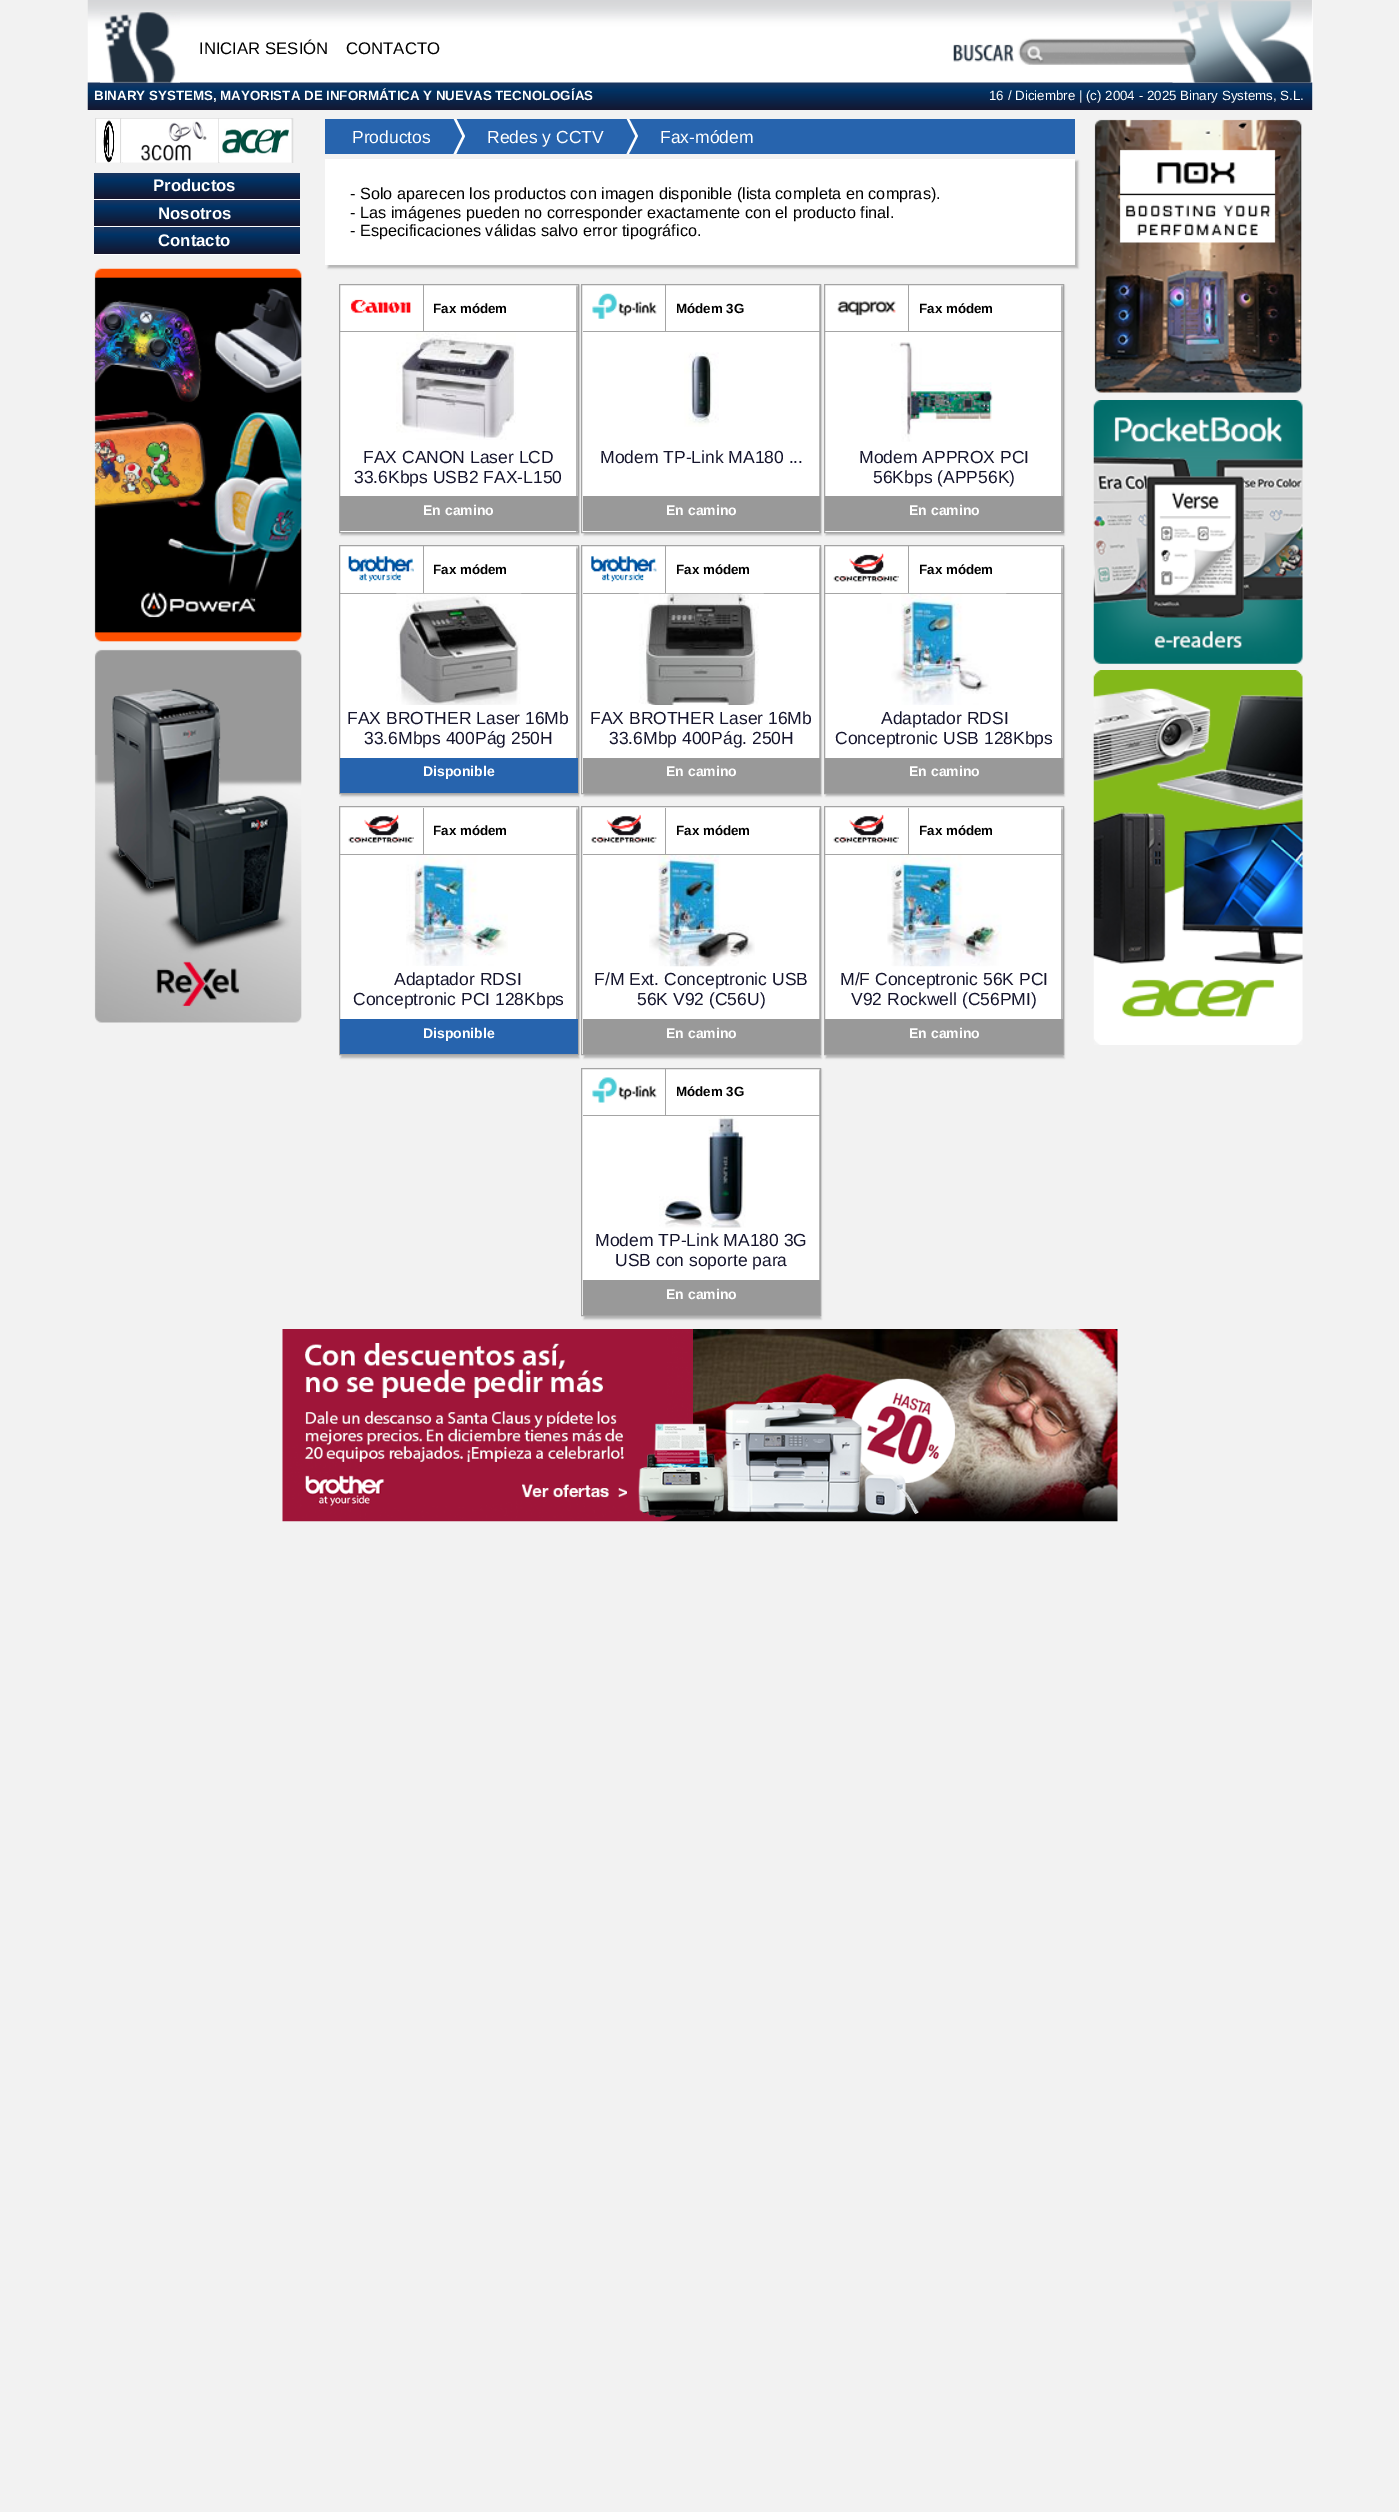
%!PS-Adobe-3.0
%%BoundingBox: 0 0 1399 2512
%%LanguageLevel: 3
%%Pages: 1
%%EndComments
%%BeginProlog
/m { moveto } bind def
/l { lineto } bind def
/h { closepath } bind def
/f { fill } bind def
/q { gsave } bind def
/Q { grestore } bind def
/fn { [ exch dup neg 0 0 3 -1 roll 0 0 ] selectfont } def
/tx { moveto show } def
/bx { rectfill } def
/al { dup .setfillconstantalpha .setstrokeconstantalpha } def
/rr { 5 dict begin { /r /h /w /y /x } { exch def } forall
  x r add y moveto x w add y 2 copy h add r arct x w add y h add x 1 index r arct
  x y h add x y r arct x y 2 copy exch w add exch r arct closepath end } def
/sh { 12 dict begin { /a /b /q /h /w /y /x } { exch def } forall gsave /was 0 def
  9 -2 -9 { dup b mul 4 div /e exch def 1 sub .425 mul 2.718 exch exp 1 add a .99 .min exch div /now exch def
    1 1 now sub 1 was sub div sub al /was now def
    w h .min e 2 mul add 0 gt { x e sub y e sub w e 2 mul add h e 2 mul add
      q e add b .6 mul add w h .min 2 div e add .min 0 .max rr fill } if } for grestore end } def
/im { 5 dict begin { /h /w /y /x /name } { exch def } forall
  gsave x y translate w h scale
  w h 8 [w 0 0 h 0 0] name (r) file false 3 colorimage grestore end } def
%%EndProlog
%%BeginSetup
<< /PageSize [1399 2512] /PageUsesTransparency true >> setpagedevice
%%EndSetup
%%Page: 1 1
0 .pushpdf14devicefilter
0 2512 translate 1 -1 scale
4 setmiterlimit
0.949 setgray
0 0 1399 2512 bx
1 setgray
1312 0 1 110 bx
(image0.raw) 87 0 1226 110 im
(image1.raw) 100 12 80 71 im
/LiberationSans-Regular 16.75 fn
0 setgray
(INICIAR SESIÓN) 199 54 tx
(CONTACTO) 346 54 tx
(image2.raw) 1172 1 140 82 im
(image3.raw) 953 38 244 27 im
/LiberationSans-Bold 13.35 fn
1 setgray
(BINARY SYSTEMS, MAYORISTA DE INFORMÁTICA Y NUEVAS TECNOLOGÍAS) 94 100 tx
/LiberationSans-Regular 13.35 fn
(16 / Diciembre | \(c\) 2004 - 2025 Binary Systems, S.L.) 989 100 tx
q
91 118 205 45 rectclip
0.867 setgray
95.5 118.5 27 46 rectstroke
Q
(image4.raw) 96 118 24 45 im
q
91 118 205 45 rectclip
0.867 setgray
120.5 118.5 99 46 rectstroke
Q
(image5.raw) 121 118 97 45 im
q
91 118 205 45 rectclip
0.867 setgray
218.5 118.5 74 46 rectstroke
Q
(image6.raw) 218 118 73 45 im
q 94 173 m 300 173 l 300 199 l 94 199 l h clip newpath
<< /ShadingType 2 /ColorSpace /DeviceRGB /Coords [197 173 197 199] /Extend [true true] /Function << /FunctionType 3 /Domain [0 1] /Functions [<< /FunctionType 2 /Domain [0 1] /C0 [0.11 0.212 0.376] /C1 [0 0.2 0.4] /N 1 >> << /FunctionType 2 /Domain [0 1] /C0 [0 0.2 0.4] /C1 [0.082 0.082 0.176] /N 1 >>] /Bounds [0.25] /Encode [0 1 0 1] >> >> shfill Q
94 199 206 1 bx
/LiberationSans-Bold 16.75 fn
(Productos) 153 191 tx
q 94 200 m 300 200 l 300 226 l 94 226 l h clip newpath
<< /ShadingType 2 /ColorSpace /DeviceRGB /Coords [197 200 197 226] /Extend [true true] /Function << /FunctionType 3 /Domain [0 1] /Functions [<< /FunctionType 2 /Domain [0 1] /C0 [0.11 0.212 0.376] /C1 [0 0.2 0.4] /N 1 >> << /FunctionType 2 /Domain [0 1] /C0 [0 0.2 0.4] /C1 [0.082 0.082 0.176] /N 1 >>] /Bounds [0.25] /Encode [0 1 0 1] >> >> shfill Q
q 94 227 m 300 227 l 300 228 l 94 228 l h clip newpath
<< /ShadingType 2 /ColorSpace /DeviceRGB /Coords [197 226 197 253] /Extend [true true] /Function << /FunctionType 3 /Domain [0 1] /Functions [<< /FunctionType 2 /Domain [0 1] /C0 [0.11 0.212 0.376] /C1 [0 0.2 0.4] /N 1 >> << /FunctionType 2 /Domain [0 1] /C0 [0 0.2 0.4] /C1 [0.082 0.082 0.176] /N 1 >>] /Bounds [0.25] /Encode [0 1 0 1] >> >> shfill Q
94 226 206 1 bx
(Nosotros) 158 219 tx
q 94 228 m 300 228 l 300 254 l 94 254 l h clip newpath
<< /ShadingType 2 /ColorSpace /DeviceRGB /Coords [197 228 197 254] /Extend [true true] /Function << /FunctionType 3 /Domain [0 1] /Functions [<< /FunctionType 2 /Domain [0 1] /C0 [0.11 0.212 0.376] /C1 [0 0.2 0.4] /N 1 >> << /FunctionType 2 /Domain [0 1] /C0 [0 0.2 0.4] /C1 [0.082 0.082 0.176] /N 1 >>] /Bounds [0.25] /Encode [0 1 0 1] >> >> shfill Q
94 254 206 1 bx
(Contacto) 158 246 tx
(image7.raw) 94 268 208 374 im
(image8.raw) 94 649 208 374 im
0.153 0.392 0.682 setrgbcolor
325 119 750 35 bx
q
314 119 761 35 rectclip
1 setgray
434 199 m 434 74 l 465 136 l h f
0.153 0.392 0.682 setrgbcolor
431 199 m 431 74 l 462 136 l h f
Q
/LiberationSans-Regular 17.5 fn
1 setgray
(Productos) 352 143 tx
q
314 119 761 35 rectclip
606 199 m 606 74 l 638 136 l h f
0.153 0.392 0.682 setrgbcolor
604 199 m 604 74 l 635 136 l h f
Q
(Redes y CCTV) 487 143 tx
(Fax-módem) 660 143 tx
0 setgray
328 161 750 107 0 1 0.25 sh
1 setgray
325 159 750 106 bx
/LiberationSans-Regular 16.25 fn
0 setgray
(- Solo aparecen los productos con imagen disponible \(lista completa en compras\).) 350 199 tx
(- Las imágenes pueden no corresponder exactamente con el producto final.) 350 218 tx
(- Especificaciones válidas salvo error tipográfico.) 350 236 tx
341 286 238 249 0 1 0.25 sh
1 setgray
340 285 236 247 bx
0.643 setgray
339.5 284.5 239 248 rectstroke
340 331 238 1 bx
(image9.raw) 350 299 61 15 im
423 285 1 46 bx
/LiberationSans-Bold 13.35 fn
0 setgray
(Fax módem) 433 313 tx
(image10.raw) 396 332 120 108 im
/LiberationSans-Regular 17.5 fn
0.082 0.082 0.176 setrgbcolor
(FAX CANON Laser LCD) 363 463 tx
(33.6Kbps USB2 FAX-L150) 354 483 tx
0.6 setgray
340 496 238 35 bx
/LiberationSans-Bold 14 fn
1 setgray
(En camino) 423 515 tx
0 setgray
584 286 237 249 0 1 0.25 sh
1 setgray
582 285 237 247 bx
0.643 setgray
581.5 284.5 239 248 rectstroke
583 331 237 1 bx
(image11.raw) 592 293 65 26 im
665 285 1 46 bx
/LiberationSans-Bold 13.35 fn
0 setgray
(Módem 3G) 676 313 tx
(image12.raw) 684 352 35 75 im
/LiberationSans-Regular 17.5 fn
0.082 0.082 0.176 setrgbcolor
(Modem TP-Link MA180 ...) 600 463 tx
0.6 setgray
583 496 237 35 bx
/LiberationSans-Bold 14 fn
1 setgray
(En camino) 666 515 tx
0 setgray
826 286 238 249 0 1 0.25 sh
1 setgray
825 285 236 247 bx
0.643 setgray
824.5 284.5 239 248 rectstroke
825 331 238 1 bx
(image13.raw) 837 301 59 15 im
908 285 1 46 bx
/LiberationSans-Bold 13.35 fn
0 setgray
(Fax módem) 919 313 tx
(image14.raw) 891 342 102 100 im
/LiberationSans-Regular 17.5 fn
0.082 0.082 0.176 setrgbcolor
(Modem APPROX PCI) 859 463 tx
(56Kbps \(APP56K\)) 873 483 tx
0.6 setgray
825 496 238 35 bx
/LiberationSans-Bold 14 fn
1 setgray
(En camino) 909 515 tx
0 setgray
341 548 238 248 0 1 0.25 sh
1 setgray
340 546 236 212 bx
0.643 setgray
339.5 545.5 239 248 rectstroke
340 593 238 1 bx
(image15.raw) 348 556 66 26 im
423 546 1 47 bx
/LiberationSans-Bold 13.35 fn
0 setgray
(Fax módem) 433 574 tx
(image16.raw) 396 593 126 112 im
/LiberationSans-Regular 17.5 fn
0.082 0.082 0.176 setrgbcolor
(FAX BROTHER Laser 16Mb) 347 724 tx
(33.6Mbps 400Pág 250H) 364 744 tx
0.153 0.392 0.682 setrgbcolor
340 758 238 35 bx
/LiberationSans-Bold 14 fn
1 setgray
(Disponible) 423 776 tx
0 setgray
584 548 237 248 0 1 0.25 sh
1 setgray
582 546 237 247 bx
0.643 setgray
581.5 545.5 239 248 rectstroke
583 593 237 1 bx
(image17.raw) 591 556 66 26 im
665 546 1 47 bx
/LiberationSans-Bold 13.35 fn
0 setgray
(Fax módem) 676 574 tx
(image18.raw) 638 593 126 112 im
/LiberationSans-Regular 17.5 fn
0.082 0.082 0.176 setrgbcolor
(FAX BROTHER Laser 16Mb) 590 724 tx
(33.6Mbp 400Pág. 250H) 609 744 tx
0.6 setgray
583 758 237 35 bx
/LiberationSans-Bold 14 fn
1 setgray
(En camino) 666 776 tx
0 setgray
826 548 238 248 0 1 0.25 sh
1 setgray
825 546 236 212 bx
0.643 setgray
824.5 545.5 239 248 rectstroke
825 593 238 1 bx
(image19.raw) 833 553 66 29 im
908 546 1 47 bx
/LiberationSans-Bold 13.35 fn
0 setgray
(Fax módem) 919 574 tx
(image20.raw) 881 593 126 112 im
/LiberationSans-Regular 17.5 fn
0.082 0.082 0.176 setrgbcolor
(Adaptador RDSI) 881 724 tx
(Conceptronic USB 128Kbps) 835 744 tx
0.6 setgray
825 758 238 35 bx
/LiberationSans-Bold 14 fn
1 setgray
(En camino) 909 776 tx
0 setgray
341 809 238 249 0 1 0.25 sh
1 setgray
340 807 236 212 bx
0.643 setgray
339.5 806.5 239 248 rectstroke
340 854 238 1 bx
(image21.raw) 348 814 66 29 im
423 808 1 46 bx
/LiberationSans-Bold 13.35 fn
0 setgray
(Fax módem) 433 835 tx
(image22.raw) 406 855 102 111 im
/LiberationSans-Regular 17.5 fn
0.082 0.082 0.176 setrgbcolor
(Adaptador RDSI) 394 985 tx
(Conceptronic PCI 128Kbps) 353 1005 tx
0.153 0.392 0.682 setrgbcolor
340 1019 238 35 bx
/LiberationSans-Bold 14 fn
1 setgray
(Disponible) 423 1038 tx
0 setgray
584 809 237 249 0 1 0.25 sh
1 setgray
582 807 237 247 bx
0.643 setgray
581.5 806.5 239 248 rectstroke
583 854 237 1 bx
(image23.raw) 591 814 66 29 im
665 808 1 46 bx
/LiberationSans-Bold 13.35 fn
0 setgray
(Fax módem) 676 835 tx
(image24.raw) 649 855 106 112 im
/LiberationSans-Regular 17.5 fn
0.082 0.082 0.176 setrgbcolor
(F/M Ext. Conceptronic USB) 594 985 tx
(56K V92 \(C56U\)) 637 1005 tx
0.6 setgray
583 1019 237 35 bx
/LiberationSans-Bold 14 fn
1 setgray
(En camino) 666 1038 tx
0 setgray
826 809 238 249 0 1 0.25 sh
1 setgray
825 807 236 212 bx
0.643 setgray
824.5 806.5 239 248 rectstroke
825 854 238 1 bx
(image21.raw) 833 814 66 29 im
908 808 1 46 bx
/LiberationSans-Bold 13.35 fn
0 setgray
(Fax módem) 919 835 tx
(image25.raw) 887 855 115 112 im
/LiberationSans-Regular 17.5 fn
0.082 0.082 0.176 setrgbcolor
(M/F Conceptronic 56K PCI) 840 985 tx
(V92 Rockwell \(C56PMI\)) 851 1005 tx
0.6 setgray
825 1019 238 35 bx
/LiberationSans-Bold 14 fn
1 setgray
(En camino) 909 1038 tx
0 setgray
584 1070 237 249 0 1 0.25 sh
1 setgray
582 1069 237 246 bx
0.643 setgray
581.5 1068.5 239 247 rectstroke
583 1115 237 1 bx
(image26.raw) 592 1077 65 26 im
665 1069 1 46 bx
/LiberationSans-Bold 13.35 fn
0 setgray
(Módem 3G) 676 1096 tx
(image27.raw) 659 1116 87 112 im
/LiberationSans-Regular 17.5 fn
0.082 0.082 0.176 setrgbcolor
(Modem TP-Link MA180 3G) 595 1246 tx
(USB con soporte para) 615 1266 tx
0.6 setgray
583 1280 237 35 bx
/LiberationSans-Bold 14 fn
1 setgray
(En camino) 666 1299 tx
(image28.raw) 1094 119 208 274 im
(image29.raw) 1093 400 210 264 im
(image30.raw) 1093 670 210 375 im
(image31.raw) 282 1329 836 193 im
.poppdf14devicefilter showpage
%%EOF
